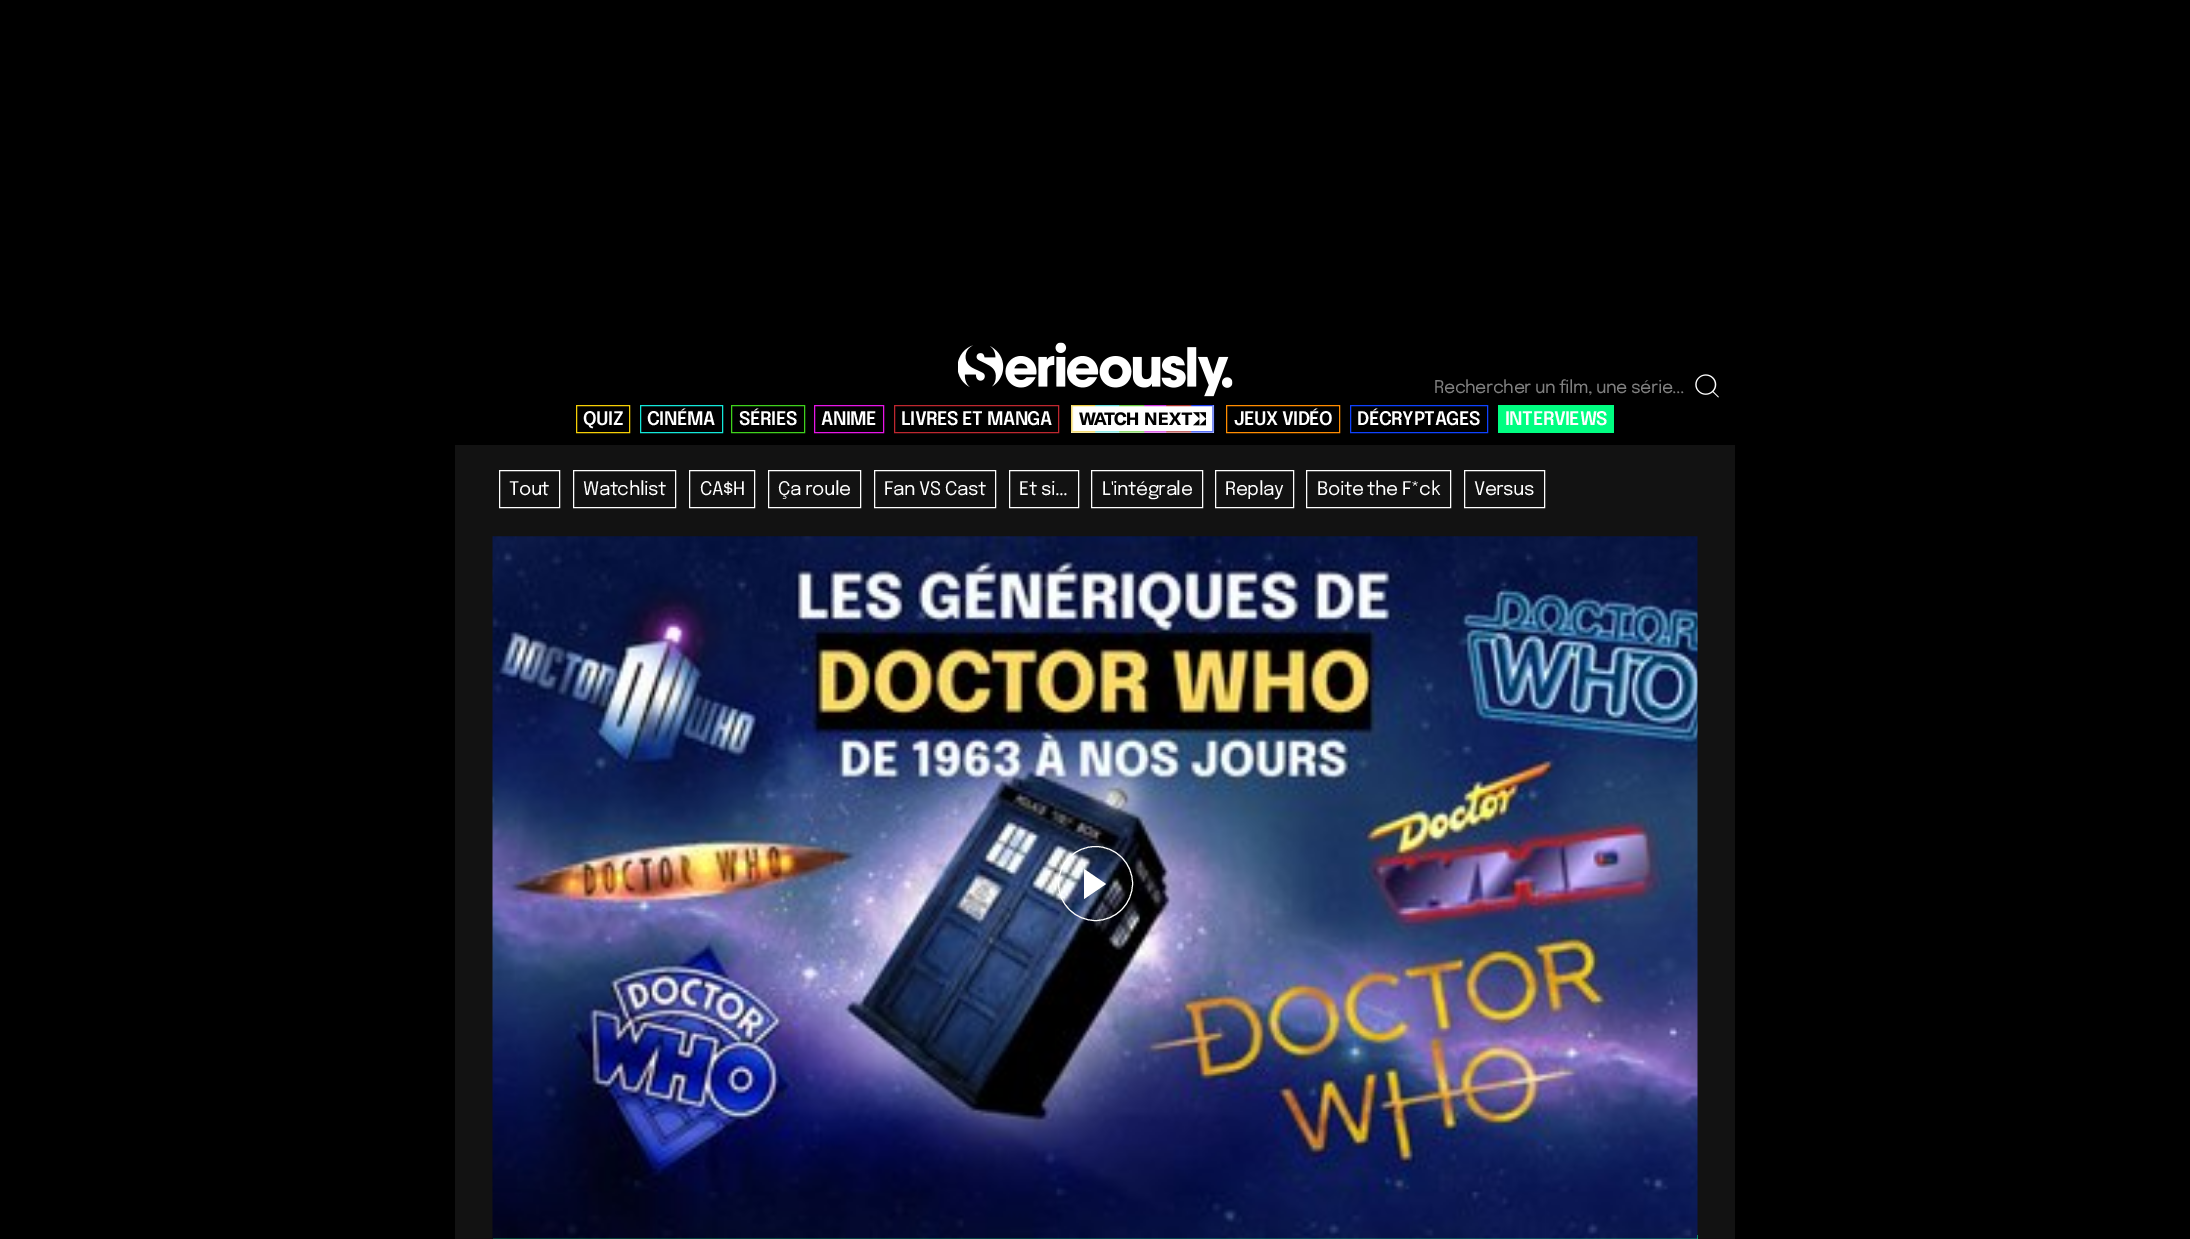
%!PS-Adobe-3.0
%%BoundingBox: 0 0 2190 1239
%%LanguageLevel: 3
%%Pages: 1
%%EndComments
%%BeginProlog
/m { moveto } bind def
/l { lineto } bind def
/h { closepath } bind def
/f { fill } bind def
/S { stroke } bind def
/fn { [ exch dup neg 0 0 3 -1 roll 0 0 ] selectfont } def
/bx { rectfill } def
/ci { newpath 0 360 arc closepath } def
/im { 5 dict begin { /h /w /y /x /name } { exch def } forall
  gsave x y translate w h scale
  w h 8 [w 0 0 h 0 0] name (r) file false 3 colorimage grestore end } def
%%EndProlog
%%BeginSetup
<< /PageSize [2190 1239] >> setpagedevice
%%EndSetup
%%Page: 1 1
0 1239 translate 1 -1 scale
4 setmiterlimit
0 setgray
0 0 2190 1239 bx
(image0.raw) 958 342 275 55 im
/Epilogue-Regular 17.5 fn
0.502 setgray
1434 393 m -0.5 0 (Rechercher un film, une série...) ashow
(image1.raw) 1695 374 24 24 im
0.961 0.812 0.024 setrgbcolor
576.5 405.5 53 27 rectstroke
/Epilogue-SemiBold 18.75 fn
1 setgray
583 425 m -0.5 0 (QUIZ) ashow
0.075 0.91 0.855 setrgbcolor
640.5 405.5 82 27 rectstroke
1 setgray
647 425 m -0.5 0 (CINÉMA) ashow
0.247 0.824 0.11 setrgbcolor
731.5 405.5 73 27 rectstroke
1 setgray
739 425 m -0.5 0 (SÉRIES) ashow
0.906 0.082 0.906 setrgbcolor
814.5 405.5 69 27 rectstroke
1 setgray
821 425 m -0.5 0 (ANIME) ashow
0.745 0.153 0.184 setrgbcolor
894.5 405.5 164 27 rectstroke
1 setgray
901 425 m -0.5 0 (LIVRES ET MANGA) ashow
1071 405 143 28 bx
(image2.raw) 1071 405 144 28 im
(image3.raw) 1079 412 127 14 im
1 0.549 0 setrgbcolor
1226.5 405.5 113 27 rectstroke
1 setgray
1234 425 m -0.5 0 (JEUX VIDÉO) ashow
0.055 0.263 1 setrgbcolor
1350.5 405.5 137 27 rectstroke
1 setgray
1357 425 m -0.5 0 (DÉCRYPTAGES) ashow
0 0.996 0.506 setrgbcolor
1498 405 116 28 bx
1 setgray
1505 425 m -0.5 0 (INTERVIEWS) ashow
0.071 setgray
455 445 1280 794 bx
1 setgray
499.5 470.5 60 37 rectstroke
/Epilogue-Regular 18.75 fn
509 495 m -0.5 0 (Tout) ashow
573.5 470.5 102 37 rectstroke
583 495 m -0.5 0 (Watchlist) ashow
689.5 470.5 65 37 rectstroke
700 495 m -0.5 0 (CA$H) ashow
768.5 470.5 92 37 rectstroke
778 495 m -0.5 0 (Ça roule) ashow
874.5 470.5 121 37 rectstroke
884 495 m -0.5 0 (Fan VS Cast) ashow
1009.5 470.5 69 37 rectstroke
1019 495 m -0.5 0 (Et si...) ashow
1091.5 470.5 111 37 rectstroke
1102 495 m -0.5 0 (L'intégrale) ashow
1215.5 470.5 78 37 rectstroke
1225 495 m -0.5 0 (Replay) ashow
1306.5 470.5 144 37 rectstroke
1317 495 m -0.5 0 (Boite the F*ck) ashow
1464.5 470.5 80 37 rectstroke
1474 495 m -0.5 0 (Versus) ashow
0 0.996 0.506 setrgbcolor
493 1235 1205 4 bx
(image4.raw) 492 536 1206 703 im
1 setgray
1095.5 883.5 37 ci S
1084 899 m 1084 869 l 1106 884 l h f
showpage
%%EOF
